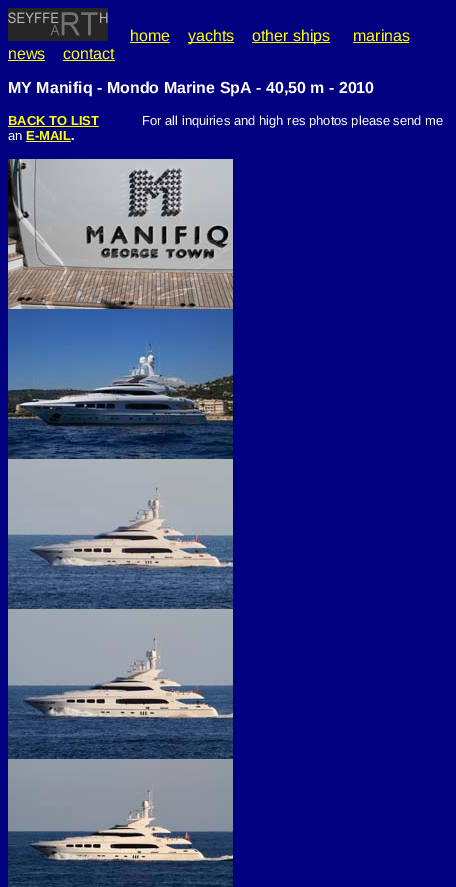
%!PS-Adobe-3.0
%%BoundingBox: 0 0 456 887
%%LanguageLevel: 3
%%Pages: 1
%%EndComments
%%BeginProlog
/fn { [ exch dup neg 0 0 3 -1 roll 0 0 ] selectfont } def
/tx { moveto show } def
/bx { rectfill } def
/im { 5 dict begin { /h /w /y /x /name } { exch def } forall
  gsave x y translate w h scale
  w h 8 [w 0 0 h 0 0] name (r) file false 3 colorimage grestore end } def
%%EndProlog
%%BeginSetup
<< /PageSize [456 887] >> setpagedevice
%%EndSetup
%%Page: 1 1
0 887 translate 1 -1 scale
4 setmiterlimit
0 0 0.502 setrgbcolor
0 0 456 887 bx
(image0.raw) 8 8 100 33 im
/LiberationSans-Regular 16 fn
1 1 0 setrgbcolor
(home) 130 41 tx
130 42 40 1 bx
188 42 46 1 bx
(yachts) 188 41 tx
252 42 78 1 bx
(other ships) 252 41 tx
(marinas) 353 41 tx
353 42 56 1 bx
(news) 8 59 tx
8 60 37 1 bx
(contact) 63 59 tx
63 60 52 1 bx
/LiberationSans-Bold 16 fn
1 setgray
(MY Manifiq - Mondo Marine SpA - 40,50 m - 2010) 8 93 tx
/LiberationSans-Bold 13 fn
1 1 0 setrgbcolor
(BACK TO LIST) 8 125 tx
8 126 91 1 bx
/LiberationSans-Regular 13 fn
1 setgray
(For all inquiries and high res photos please send me) 142 125 tx
(an) 8 140 tx
/LiberationSans-Bold 13 fn
1 1 0 setrgbcolor
(E-MAIL) 26 140 tx
1 setgray
(.) 71 140 tx
1 1 0 setrgbcolor
26 141 45 1 bx
(image1.raw) 8 159 225 150 im
(image2.raw) 8 309 225 150 im
(image3.raw) 8 459 225 150 im
(image4.raw) 8 609 225 150 im
(image5.raw) 8 759 225 128 im
showpage
%%EOF
